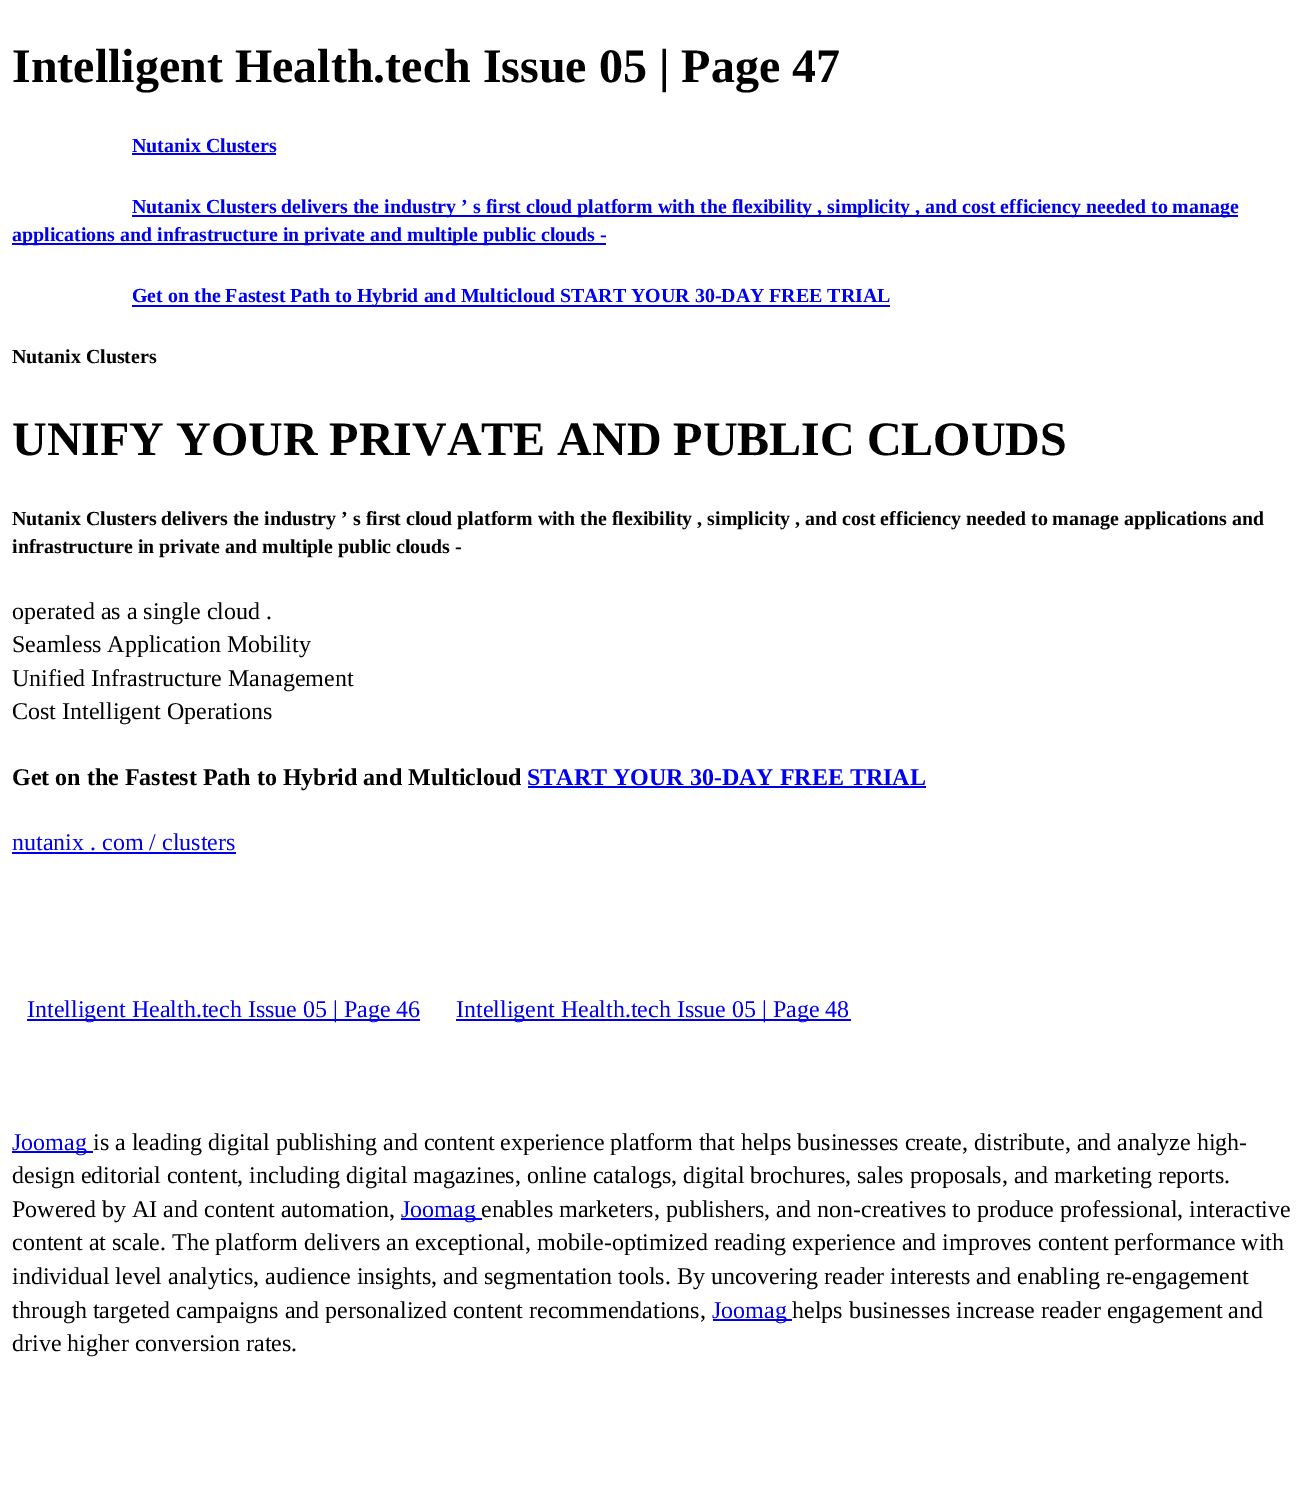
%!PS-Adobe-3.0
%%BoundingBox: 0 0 1310 1491
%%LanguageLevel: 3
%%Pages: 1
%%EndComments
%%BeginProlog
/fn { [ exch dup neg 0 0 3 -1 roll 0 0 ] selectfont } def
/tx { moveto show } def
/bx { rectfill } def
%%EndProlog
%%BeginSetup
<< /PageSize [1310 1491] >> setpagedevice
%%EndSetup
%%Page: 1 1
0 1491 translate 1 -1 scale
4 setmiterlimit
1 setgray
0 0 1310 1491 bx
/LiberationSerif-Bold 48 fn
0 setgray
(Intelligent Health.tech Issue 05 | Page 47) 12 82 tx
/LiberationSerif-Bold 19.92 fn
0 0 0.933 setrgbcolor
(Nutanix Clusters) 132 152 tx
132 153 144 2 bx
132 215 1106 2 bx
(Nutanix Clusters delivers the industry ’ s first cloud platform with the flexibility , simplicity , and cost efficiency needed to manage) 132 213 tx
12 243 594 2 bx
(applications and infrastructure in private and multiple public clouds -) 12 241 tx
132 305 758 2 bx
(Get on the Fastest Path to Hybrid and Multicloud START YOUR 30-DAY FREE TRIAL) 132 302 tx
0 setgray
(Nutanix Clusters) 12 363 tx
/LiberationSerif-Bold 48 fn
(UNIFY YOUR PRIVATE AND PUBLIC CLOUDS) 12 455 tx
/LiberationSerif-Bold 19.92 fn
(Nutanix Clusters delivers the industry ’ s first cloud platform with the flexibility , simplicity , and cost efficiency needed to manage applications and) 12 525 tx
(infrastructure in private and multiple public clouds -) 12 553 tx
/LiberationSerif-Regular 24 fn
(operated as a single cloud .) 12 619 tx
(Seamless Application Mobility) 12 652 tx
(Unified Infrastructure Management) 12 686 tx
(Cost Intelligent Operations) 12 719 tx
/LiberationSerif-Bold 24 fn
(Get on the Fastest Path to Hybrid and Multicloud) 12 785 tx
0 0 0.933 setrgbcolor
(START YOUR 30-DAY FREE TRIAL) 527 785 tx
528 786 398 2 bx
/LiberationSerif-Regular 24 fn
(nutanix . com / clusters) 12 850 tx
12 852 224 2 bx
27 1019 393 2 bx
(Intelligent Health.tech Issue 05 | Page 46) 27 1017 tx
456 1019 395 2 bx
(Intelligent Health.tech Issue 05 | Page 48) 456 1017 tx
12 1151 81 2 bx
(Joomag) 12 1150 tx
0 setgray
(is a leading digital publishing and content experience platform that helps businesses create, distribute, and analyze high-) 93 1150 tx
(design editorial content, including digital magazines, online catalogs, digital brochures, sales proposals, and marketing reports.) 12 1183 tx
(Powered by AI and content automation,) 12 1217 tx
0 0 0.933 setrgbcolor
401 1218 81 2 bx
(Joomag) 401 1217 tx
0 setgray
(enables marketers, publishers, and non-creatives to produce professional, interactive) 481 1217 tx
(content at scale. The platform delivers an exceptional, mobile-optimized reading experience and improves content performance with) 12 1250 tx
(individual level analytics, audience insights, and segmentation tools. By uncovering reader interests and enabling re-engagement) 12 1284 tx
(through targeted campaigns and personalized content recommendations,) 12 1318 tx
0 0 0.933 setrgbcolor
713 1319 79 2 bx
(Joomag) 712 1318 tx
0 setgray
(helps businesses increase reader engagement and) 792 1318 tx
(drive higher conversion rates.) 12 1351 tx
showpage
%%EOF
